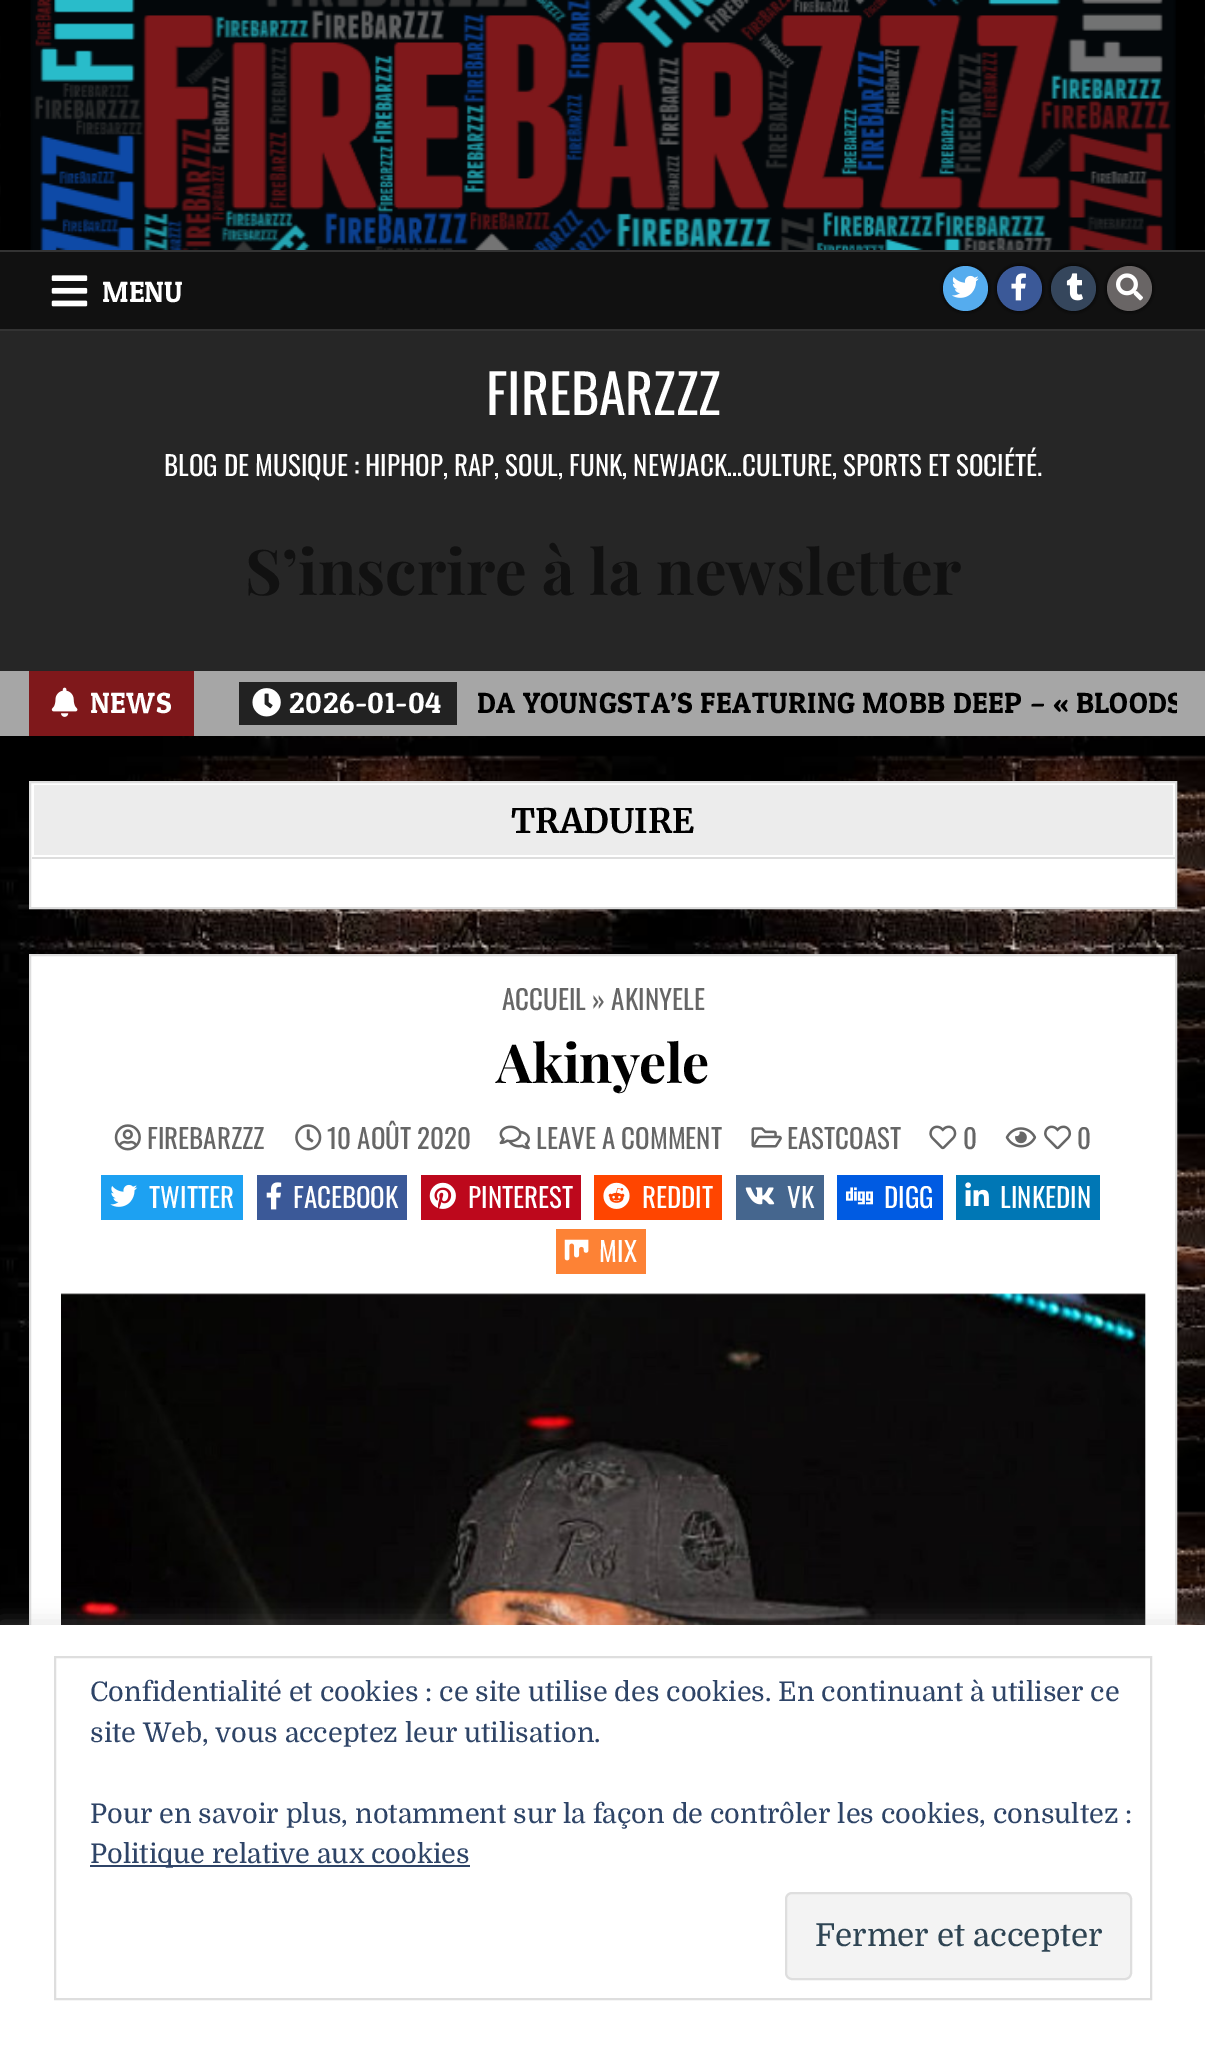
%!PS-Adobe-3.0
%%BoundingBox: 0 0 1205 2053
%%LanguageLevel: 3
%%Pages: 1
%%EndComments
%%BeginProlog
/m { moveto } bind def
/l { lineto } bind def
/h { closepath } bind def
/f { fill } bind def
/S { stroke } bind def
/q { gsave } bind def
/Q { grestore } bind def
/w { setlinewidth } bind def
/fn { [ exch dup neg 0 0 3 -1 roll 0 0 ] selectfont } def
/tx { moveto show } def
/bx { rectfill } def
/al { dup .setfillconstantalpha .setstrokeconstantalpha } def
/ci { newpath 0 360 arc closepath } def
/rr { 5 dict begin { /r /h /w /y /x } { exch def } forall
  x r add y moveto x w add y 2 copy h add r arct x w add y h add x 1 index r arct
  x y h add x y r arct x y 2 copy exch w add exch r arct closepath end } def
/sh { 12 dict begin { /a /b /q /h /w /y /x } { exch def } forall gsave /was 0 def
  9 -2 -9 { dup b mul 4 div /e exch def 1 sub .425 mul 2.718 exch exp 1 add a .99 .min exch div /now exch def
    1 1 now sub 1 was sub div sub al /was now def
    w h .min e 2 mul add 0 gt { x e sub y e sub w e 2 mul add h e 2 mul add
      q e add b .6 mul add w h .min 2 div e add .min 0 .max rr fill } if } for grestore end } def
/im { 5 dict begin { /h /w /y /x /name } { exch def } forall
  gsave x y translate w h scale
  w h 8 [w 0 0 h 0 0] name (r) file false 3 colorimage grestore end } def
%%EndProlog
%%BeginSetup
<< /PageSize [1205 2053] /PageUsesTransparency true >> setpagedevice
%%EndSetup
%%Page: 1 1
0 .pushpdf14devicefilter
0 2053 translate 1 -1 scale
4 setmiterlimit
1 setgray
0 0 1205 2053 bx
(image0.raw) 0 0 1205 1625 im
(image1.raw) 1 0 1204 250 im
0.067 setgray
0 252 1205 77 bx
0.2 setgray
0 250 1205 2 bx
0 329 1205 2 bx
(image2.raw) 51 275 37 32 im
/PatuaOne-Regular 29.25 fn
1 setgray
(MENU) 102 302 tx
0 setgray
943 266 45 45 22.5 2 1 sh
0.333 0.675 0.933 setrgbcolor
965.5 288.5 22.5 ci f
(image3.raw) 952 275 27 23 im
0 setgray
997 266 45 45 22.5 2 1 sh
0.231 0.349 0.596 setrgbcolor
1019.5 288.5 22.5 ci f
(image4.raw) 1011 273 15 28 im
0 setgray
1051 266 45 45 22.5 2 1 sh
0.208 0.275 0.361 setrgbcolor
1073.5 288.5 22.5 ci f
(image5.raw) 1066 273 17 28 im
0 setgray
1107 266 45 45 22.5 2 1 sh
0.412 0.396 0.396 setrgbcolor
1129.5 288.5 22.5 ci f
(image6.raw) 1116 273 27 28 im
0.149 setgray
0 331 1205 340 bx
/Oswald-Regular 54 fn
1 setgray
(FIREBARZZZ) 486 415 tx
/Oswald-Regular 27 fn
(BLOG DE MUSIQUE : HIPHOP, RAP, SOUL, FUNK, NEWJACK…CULTURE, SPORTS ET SOCIÉTÉ.) 164 476 tx
/PlayfairDisplay-Bold 63 fn
0.067 setgray
(S’inscrire à la newsletter) 245 595 tx
0.651 setgray
0 671 1205 65 bx
0.498 0.094 0.106 setrgbcolor
29 671 165 65 bx
(image7.raw) 51 687 27 30 im
/PatuaOne-Regular 29.25 fn
1 setgray
90 713 m 0.45 0 (NEWS) ashow
0.133 setgray
239 682 218 43 bx
(image8.raw) 252 688 29 29 im
1 setgray
289 713 m 0.45 0 (2026-01-04) ashow
q
194 671 983 65 rectclip
0 setgray
477 713 m 0.45 0 (DA YOUNGSTA’S FEATURING MOBB DEEP – « BLOODS) ashow
Q
30 782 m 1176 782 l 1176 908 l 30 908 l h q f Q
0.867 setgray
2 w
S
32 857 1143 2 bx
0.925 setgray
34 785 1139 70 bx
/Merriweather-Bold 33.75 fn
0 setgray
(TRADUIRE) 511 833 tx
1 setgray
31 956 1144 669 bx
0.867 setgray
30 955 1146 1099 rectstroke
/Oswald-Regular 27 fn
0.4 setgray
(ACCUEIL » AKINYELE) 502 1010 tx
/PlayfairDisplay-Bold 54 fn
0 setgray
496 1083 m -0.5 0 (Akinyele) ashow
(image9.raw) 114 1124 27 27 im
/Oswald-Regular 27 fn
0.4 setgray
(FIREBARZZZ) 147 1149 tx
(image10.raw) 295 1124 27 27 im
(10 AOÛT 2020) 327 1149 tx
(image11.raw) 499 1125 31 25 im
(LEAVE A COMMENT) 536 1149 tx
(image12.raw) 751 1127 31 21 im
(EASTCOAST) 787 1149 tx
(image13.raw) 929 1125 28 25 im
(0) 963 1149 tx
(image14.raw) 1005 1127 32 21 im
(image15.raw) 1044 1125 28 25 im
(0) 1077 1149 tx
0.114 0.631 0.949 setrgbcolor
101 1175 142 45 bx
(image16.raw) 110 1184 28 23 im
1 setgray
(TWITTER) 149 1208 tx
0.231 0.349 0.596 setrgbcolor
257 1175 150 45 bx
(image17.raw) 266 1182 16 28 im
1 setgray
(FACEBOOK) 293 1208 tx
0.741 0.031 0.11 setrgbcolor
421 1175 160 45 bx
(image18.raw) 429 1182 27 27 im
1 setgray
(PINTEREST) 468 1208 tx
1 0.271 0 setrgbcolor
594 1175 128 45 bx
(image19.raw) 603 1182 27 27 im
1 setgray
(REDDIT) 642 1208 tx
0.271 0.4 0.557 setrgbcolor
736 1175 88 45 bx
(image20.raw) 745 1187 30 18 im
1 setgray
(VK) 787 1208 tx
0 0.357 0.886 setrgbcolor
837 1175 106 45 bx
(image21.raw) 846 1187 27 18 im
1 setgray
(DIGG) 884 1208 tx
0 0.467 0.71 setrgbcolor
956 1175 144 45 bx
(image22.raw) 965 1182 24 24 im
1 setgray
(LINKEDIN) 1000 1208 tx
0.992 0.51 0.208 setrgbcolor
556 1229 90 45 bx
(image23.raw) 564 1239 25 22 im
1 setgray
(MIX) 599 1262 tx
(image24.raw) 61 1293 1085 332 im
0.675 0.671 0.671 setrgbcolor
0 1622 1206 430 0 11 0.3 sh
1 setgray
0 1625 1205 428 bx
0.871 setgray
55 1657 1096 342 rectstroke
/Domine-Regular 27 fn
0.18 0.267 0.404 setrgbcolor
(Confidentialité et cookies : ce site utilise des cookies. En continuant à utiliser ce) 90 1701 tx
(site Web, vous acceptez leur utilisation.) 90 1742 tx
(Pour en savoir plus, notamment sur la façon de contrôler les cookies, consultez :) 90 1823 tx
90 1865 380 2 bx
(Politique relative aux cookies) 90 1863 tx
0.953 setgray
786 1893 345 86 6 rr q f Q
0.871 setgray
S
/Domine-Regular 31.5 fn
0.18 0.267 0.325 setrgbcolor
(Fermer et accepter) 815 1946 tx
.poppdf14devicefilter showpage
%%EOF
